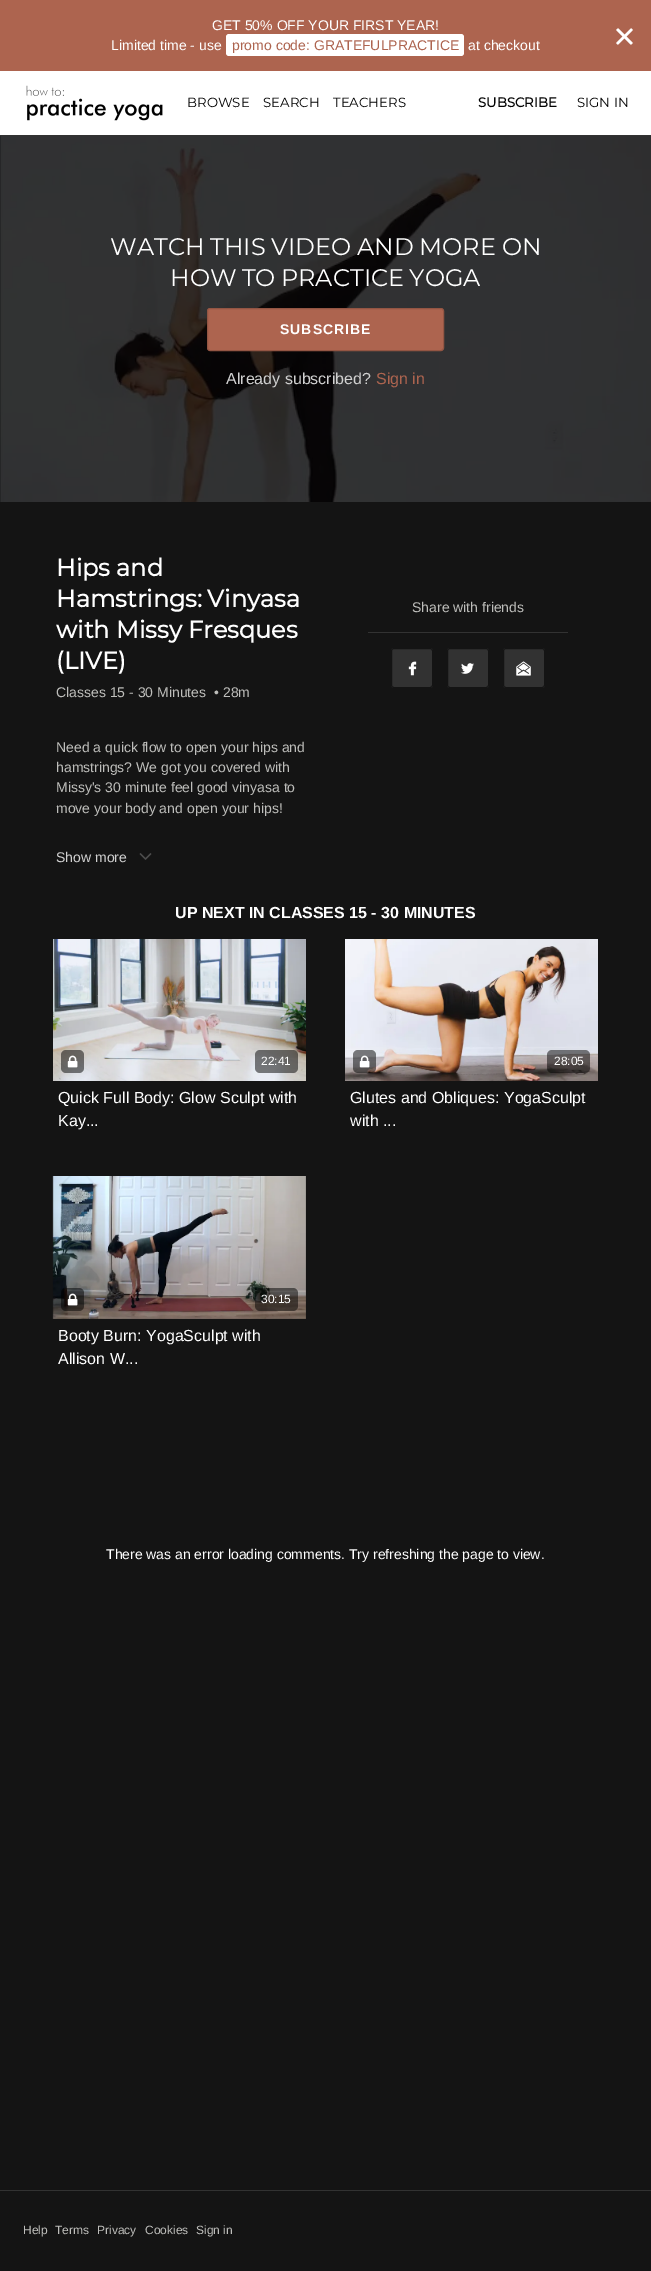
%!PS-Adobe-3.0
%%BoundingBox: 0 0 651 2271
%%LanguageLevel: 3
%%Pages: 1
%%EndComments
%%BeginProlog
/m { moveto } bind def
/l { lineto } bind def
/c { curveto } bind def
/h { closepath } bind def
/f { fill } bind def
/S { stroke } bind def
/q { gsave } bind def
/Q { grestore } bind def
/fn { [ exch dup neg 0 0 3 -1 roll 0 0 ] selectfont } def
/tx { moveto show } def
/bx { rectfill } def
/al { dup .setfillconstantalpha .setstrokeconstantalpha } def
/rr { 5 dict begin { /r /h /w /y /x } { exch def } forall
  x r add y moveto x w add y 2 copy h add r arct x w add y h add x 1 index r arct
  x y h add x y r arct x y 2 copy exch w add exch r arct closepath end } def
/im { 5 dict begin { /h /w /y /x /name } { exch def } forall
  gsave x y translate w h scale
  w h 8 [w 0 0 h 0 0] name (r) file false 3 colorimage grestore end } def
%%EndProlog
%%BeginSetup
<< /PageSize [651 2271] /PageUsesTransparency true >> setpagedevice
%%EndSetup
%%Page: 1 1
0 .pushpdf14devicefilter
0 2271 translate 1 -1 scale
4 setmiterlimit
0.078 setgray
0 0 651 2271 bx
0.678 0.392 0.31 setrgbcolor
0 0 651 71 bx
/LiberationSans-Regular 14 fn
1 setgray
(GET 50% OFF YOUR FIRST YEAR!) 212 30 tx
(Limited time - use) 111 50 tx
229 34 m 314 34 l 314 56 l 229 56 l 227.5 56 226 54.5 226 53 c 226 37 l 226 35.5 227.5 34 229 34 c h f
314 34 m 461 34 l 462.5 34 464 35.5 464 37 c 464 53 l 464 54.5 462.5 56 461 56 c 314 56 l h f
0.678 0.392 0.31 setrgbcolor
(promo code: GRATEFULPRACTICE) 232 50 tx
1 setgray
(at checkout) 468 50 tx
(image0.raw) 616 28 17 17 im
0 71 651 64 bx
0.196 setgray
0 135 651 1 bx
(image1.raw) 26 85 137 36 im
/Montserrat-Regular 13.25 fn
0.012 setgray
(BROWSE) 187 107 tx
(SEARCH) 263 107 tx
(TEACHERS) 333 107 tx
/Montserrat-Bold 13.25 fn
(SUBSCRIBE) 478 107 tx
/Montserrat-Regular 13.25 fn
(SIGN IN) 577 107 tx
(image2.raw) 0 136 651 366 im
/Montserrat-Regular 24 fn
1 setgray
110 255 m -0.5 0 32 (WATCH THIS VIDEO AND MORE ON) widthshow
170 286 m -1 0 32 (HOW TO PRACTICE YOGA) widthshow
0.678 0.392 0.31 setrgbcolor
207.5 308.5 236 42 2.5 rr q f Q
0.576 0.333 0.263 setrgbcolor
S
/LiberationSans-Bold 14 fn
1 setgray
280 334 m 1 0 (SUBSCRIBE) ashow
/LiberationSans-Regular 16 fn
0.82 setgray
(Already subscribed?) 226 384 tx
0.678 0.392 0.31 setrgbcolor
(Sign in) 376 384 tx
/Montserrat-Bold 24 fn
1 setgray
(Hips and) 56 576 tx
56 607 m -1 0 32 (Hamstrings: Vinyasa) widthshow
(with Missy Fresques) 56 638 tx
(\(LIVE\)) 56 669 tx
/LiberationSans-Regular 14 fn
0.745 0.745 0.733 setrgbcolor
(Classes 15 - 30 Minutes) 56 697 tx
(• 28m) 214 697 tx
(Need a quick flow to open your hips and) 56 752 tx
(hamstrings? We got you covered with) 56 772 tx
(Missy's 30 minute feel good vinyasa to) 56 792 tx
(move your body and open your hips!) 56 813 tx
0.82 setgray
(Show more) 56 862 tx
(image3.raw) 139 853 13 7 im
0.196 setgray
368 632 200 1 bx
0.745 0.745 0.733 setrgbcolor
(Share with friends) 412 612 tx
0.196 setgray
391 648 42 40 3 rr f
(image4.raw) 408 661 9 15 im
0.078 setgray
391.5 648.5 41 39 2.5 rr S
0.196 setgray
447 648 42 40 3 rr f
(image5.raw) 461 663 13 11 im
0.078 setgray
447.5 648.5 41 39 2.5 rr S
0.196 setgray
503 648 42 40 3 rr f
(image6.raw) 516 661 15 15 im
0.078 setgray
503.5 648.5 41 39 2.5 rr S
/LiberationSans-Bold 16 fn
1 setgray
(UP NEXT IN CLASSES 15 - 30 MINUTES) 175 918 tx
(image7.raw) 53 939 253 142 im
0.5 al
0 setgray
61 1050 23 23 5 rr f
1 al
(image8.raw) 67 1055 11 13 im
0.5 al
255 1050 43 23 5 rr f
/LiberationSans-Regular 12 fn
1 al
1 setgray
(22:41) 261 1065 tx
/LiberationSans-Regular 16 fn
(Quick Full Body: Glow Sculpt with) 58 1103 tx
(Kay...) 58 1126 tx
(image9.raw) 345 939 253 142 im
0.5 al
0 setgray
353 1050 23 23 5 rr f
1 al
(image10.raw) 359 1055 11 13 im
0.5 al
547 1050 43 23 5 rr f
/LiberationSans-Regular 12 fn
1 al
1 setgray
(28:05) 554 1065 tx
/LiberationSans-Regular 16 fn
(Glutes and Obliques: YogaSculpt) 350 1103 tx
(with ...) 350 1126 tx
(image11.raw) 52 1176 254 143 im
0.5 al
0 setgray
61 1288 23 23 5 rr f
1 al
(image12.raw) 67 1293 11 13 im
0.5 al
255 1288 43 23 5 rr f
/LiberationSans-Regular 12 fn
1 al
1 setgray
(30:15) 261 1303 tx
/LiberationSans-Regular 16 fn
(Booty Burn: YogaSculpt with) 58 1341 tx
(Allison W...) 58 1364 tx
/LiberationSans-Regular 14 fn
106 1559 m -0.1 0 32 (There was an error loading comments. Try refreshing the page to view.) widthshow
0.196 setgray
0 2190 651 1 bx
/LiberationSans-Regular 12 fn
0.745 0.745 0.733 setrgbcolor
(Help) 23 2234 tx
(Terms) 55 2234 tx
(Privacy) 97 2234 tx
(Cookies) 145 2234 tx
(Sign in) 196 2234 tx
.poppdf14devicefilter showpage
%%EOF
